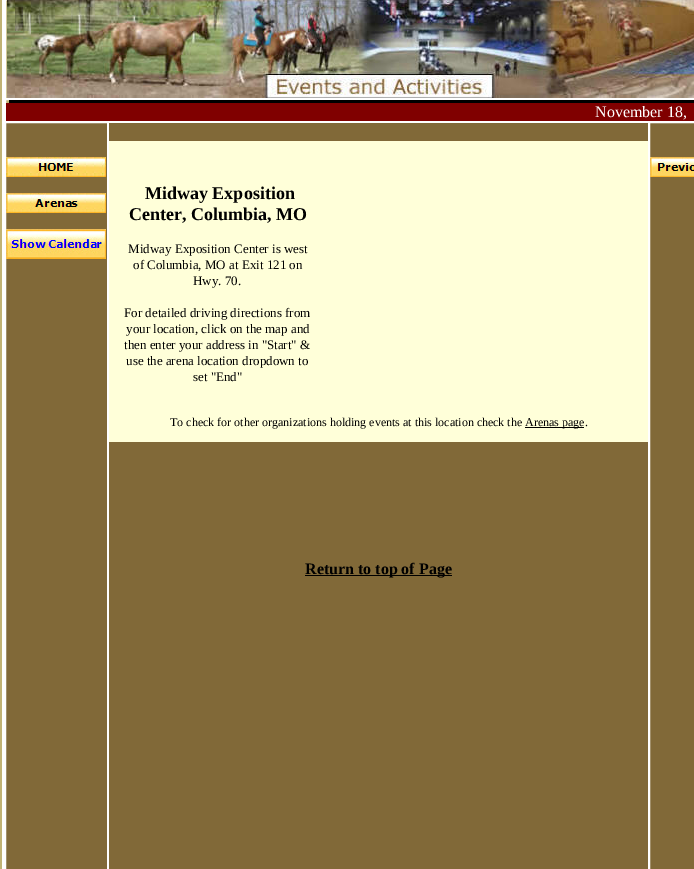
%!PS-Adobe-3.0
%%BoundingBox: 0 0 694 869
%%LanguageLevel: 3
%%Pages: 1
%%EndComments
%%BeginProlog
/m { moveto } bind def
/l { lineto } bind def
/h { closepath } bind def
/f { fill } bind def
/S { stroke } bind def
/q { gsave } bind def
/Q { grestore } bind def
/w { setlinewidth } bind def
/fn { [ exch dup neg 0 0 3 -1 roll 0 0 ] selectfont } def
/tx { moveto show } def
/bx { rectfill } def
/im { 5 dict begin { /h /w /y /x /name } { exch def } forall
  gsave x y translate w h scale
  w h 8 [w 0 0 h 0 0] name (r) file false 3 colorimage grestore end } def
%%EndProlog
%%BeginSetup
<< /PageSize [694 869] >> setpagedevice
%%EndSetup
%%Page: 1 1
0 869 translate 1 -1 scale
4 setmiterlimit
0.757 0.702 0.459 setrgbcolor
0 0 694 869 bx
1 setgray
3 w
3.5 -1.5 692 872 rectstroke
1 w
5.5 -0.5 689 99 rectstroke
(image0.raw) 7 0 687 98 im
5.5 99.5 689 22 rectstroke
0 setgray
9 100 685 3 bx
0.502 0 0 setrgbcolor
6 103 688 18 bx
/LiberationSerif-Regular 16 fn
1 setgray
(November 18,) 595 117 tx
0.506 0.412 0.22 setrgbcolor
5.5 122.5 m 107.5 122.5 l 107.5 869.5 l 5.5 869.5 l h q f Q
1 setgray
S
(image1.raw) 6 157 100 20 im
(image2.raw) 6 193 100 20 im
(image3.raw) 6 229 100 30 im
108.5 122.5 540 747 rectstroke
0.506 0.412 0.22 setrgbcolor
109 123 539 746 bx
1 1 0.851 setrgbcolor
109 141 539 301 bx
/LiberationSerif-Bold 18 fn
0 setgray
(Midway Exposition) 145 199 tx
(Center, Columbia, MO) 129 220 tx
/LiberationSerif-Regular 13 fn
(Midway Exposition Center is west) 128 253 tx
(of Columbia, MO at Exit 121 on) 133 269 tx
(Hwy. 70.) 193 285 tx
(For detailed driving directions from) 124 317 tx
(your location, click on the map and) 126 333 tx
(then enter your address in "Start" &) 124 349 tx
(use the arena location dropdown to) 126 365 tx
(set "End") 193 381 tx
/LiberationSerif-Regular 12 fn
(To check for other organizations holding events at this location check the) 170 426 tx
525 427 59 1 bx
(Arenas page.) 525 426 tx
305 575 147 1 bx
/LiberationSerif-Bold 16 fn
(Return to top of Page) 305 574 tx
0.506 0.412 0.22 setrgbcolor
649.5 122.5 m 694.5 122.5 l 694.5 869.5 l 649.5 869.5 l h q f Q
1 setgray
S
(image4.raw) 650 157 44 20 im
showpage
%%EOF
